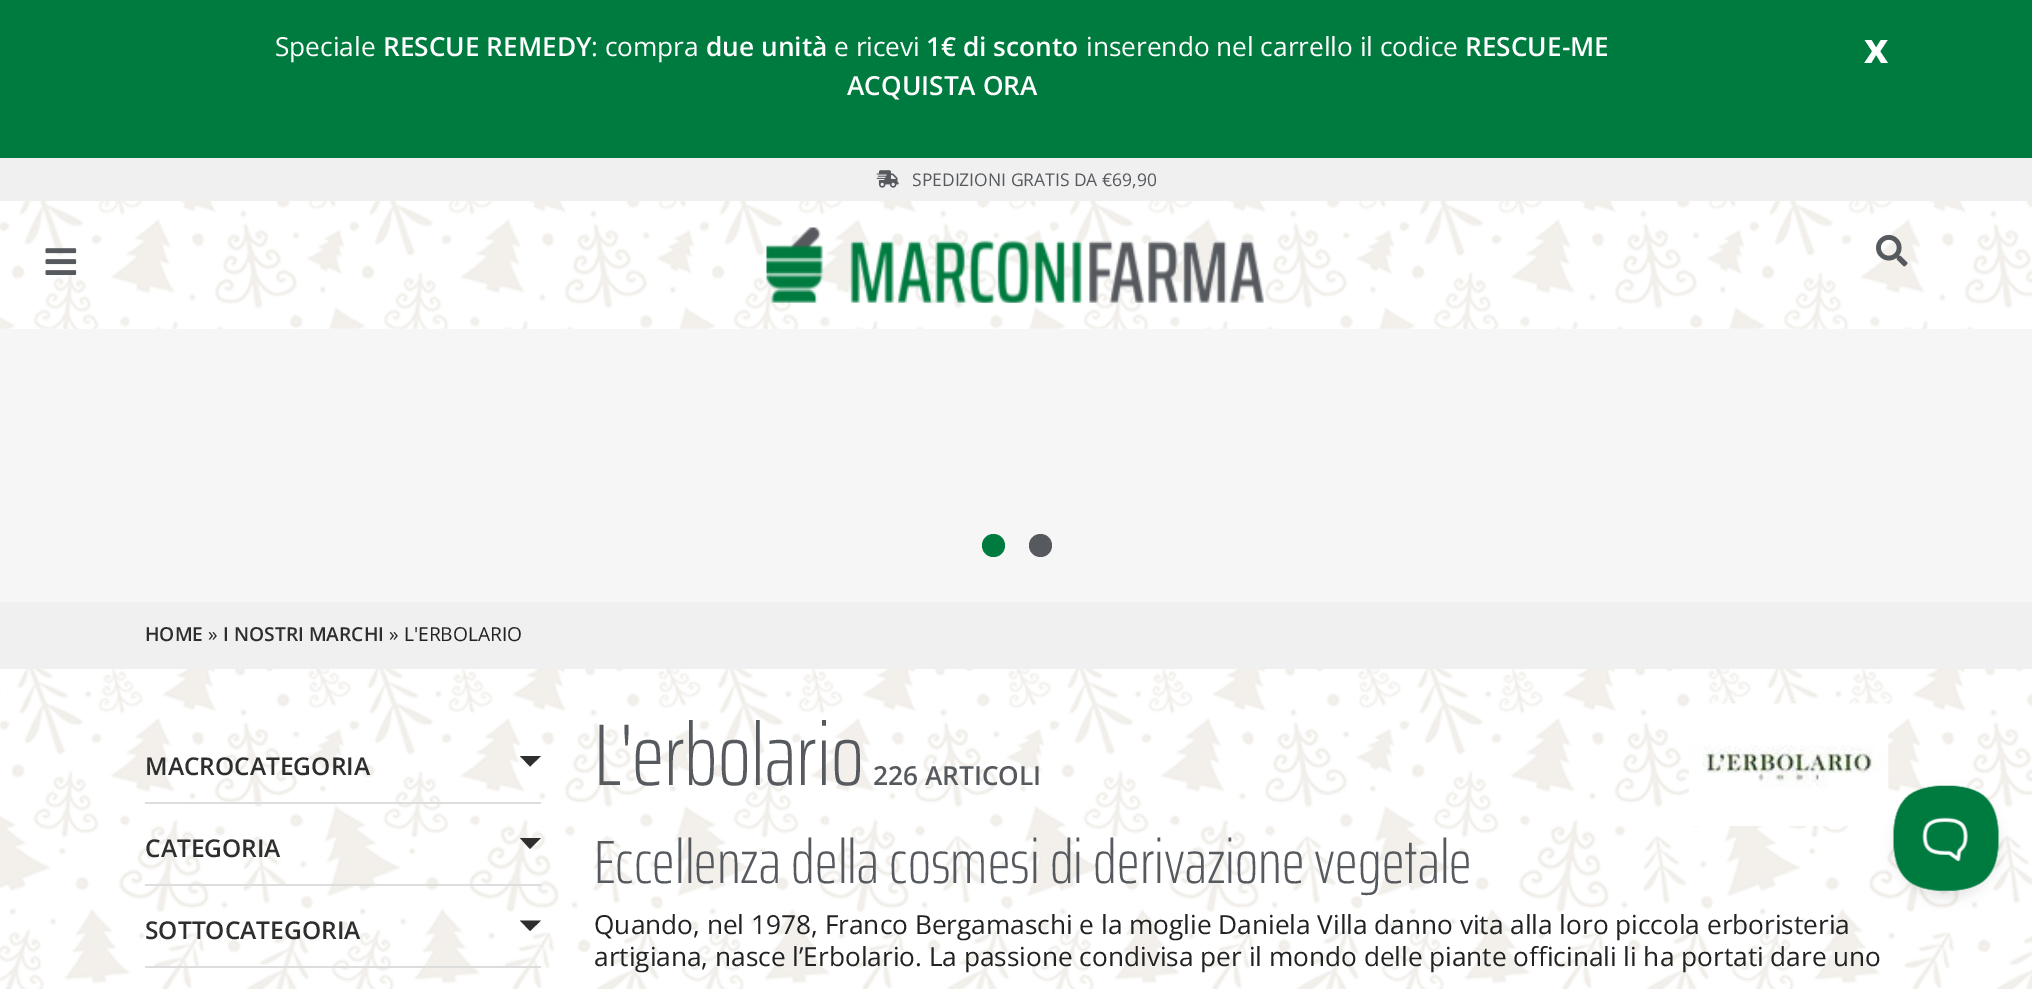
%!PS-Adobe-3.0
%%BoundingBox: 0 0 2032 989
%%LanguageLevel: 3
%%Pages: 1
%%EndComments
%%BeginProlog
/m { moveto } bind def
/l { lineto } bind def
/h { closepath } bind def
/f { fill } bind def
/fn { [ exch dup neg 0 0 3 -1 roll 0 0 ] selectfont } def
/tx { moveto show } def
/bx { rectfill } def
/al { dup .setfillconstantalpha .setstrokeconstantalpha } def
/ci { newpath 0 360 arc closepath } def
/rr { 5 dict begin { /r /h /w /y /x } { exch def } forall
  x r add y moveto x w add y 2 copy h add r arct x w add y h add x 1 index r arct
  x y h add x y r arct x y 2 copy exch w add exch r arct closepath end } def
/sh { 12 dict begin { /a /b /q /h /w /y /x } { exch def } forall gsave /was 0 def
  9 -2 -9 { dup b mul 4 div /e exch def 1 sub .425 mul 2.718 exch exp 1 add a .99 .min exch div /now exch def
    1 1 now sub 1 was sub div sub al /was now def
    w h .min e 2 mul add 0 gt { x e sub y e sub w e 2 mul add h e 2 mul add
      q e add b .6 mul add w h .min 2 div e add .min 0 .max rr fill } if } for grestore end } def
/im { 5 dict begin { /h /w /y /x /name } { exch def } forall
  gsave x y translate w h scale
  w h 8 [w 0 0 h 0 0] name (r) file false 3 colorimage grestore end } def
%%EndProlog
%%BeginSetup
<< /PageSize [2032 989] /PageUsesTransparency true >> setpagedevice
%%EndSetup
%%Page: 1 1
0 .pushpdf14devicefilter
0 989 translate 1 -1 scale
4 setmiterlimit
1 setgray
0 0 2032 989 bx
(image0.raw) 0 669 2032 320 im
0 0.482 0.251 setrgbcolor
0 0 2032 158 bx
/OpenSans-Regular 26.25 fn
1 setgray
(Speciale) 275 56 tx
/OpenSans-SemiBold 26.25 fn
(RESCUE REMEDY) 383 56 tx
/OpenSans-Regular 26.25 fn
(: compra) 591 56 tx
/OpenSans-SemiBold 26.25 fn
(due unità) 706 56 tx
/OpenSans-Regular 26.25 fn
(e ricevi) 834 56 tx
/OpenSans-SemiBold 26.25 fn
(1€ di sconto) 926 56 tx
/OpenSans-Regular 26.25 fn
(inserendo nel carrello il codice) 1086 56 tx
/OpenSans-SemiBold 26.25 fn
(RESCUE-ME) 1465 56 tx
(ACQUISTA ORA) 847 95 tx
/OpenSans-Bold 42 fn
(x) 1864 63 tx
0.941 setgray
0 158 2032 43 bx
(image1.raw) 876 170 23 18 im
/OpenSans-Regular 17.5 fn
0.337 0.349 0.365 setrgbcolor
(SPEDIZIONI GRATIS DA €69,90) 912 186 tx
(image2.raw) 0 201 2032 128 im
(image3.raw) 45 248 32 27 im
(image4.raw) 766 227 498 76 im
(image5.raw) 1876 234 32 33 im
0.965 setgray
0 329 2032 273 bx
0 0.482 0.251 setrgbcolor
993.5 545.5 11.5 ci f
0.337 0.349 0.365 setrgbcolor
1040.5 545.5 11.5 ci f
0.941 setgray
0 602 2032 67 bx
/OpenSans-SemiBold 19.25 fn
0.18 setgray
(HOME) 145 641 tx
/OpenSans-Regular 19.25 fn
0.133 setgray
(») 208 641 tx
/OpenSans-SemiBold 19.25 fn
0.18 setgray
(I NOSTRI MARCHI) 223 641 tx
/OpenSans-Regular 19.25 fn
0.133 setgray
(» L'ERBOLARIO) 389 641 tx
0.867 setgray
145 802 396 2 bx
/OpenSans-SemiBold 24.5 fn
0.18 setgray
(MACROCATEGORIA) 145 775 tx
520 756 m 541 756 l 530 766.5 l h f
0.867 setgray
145 884 396 2 bx
0.18 setgray
(CATEGORIA) 145 857 tx
520 838 m 541 838 l 530 849 l h f
0.867 setgray
145 966 396 2 bx
0.18 setgray
(SOTTOCATEGORIA) 145 939 tx
520 920.5 m 541 920.5 l 530 931 l h f
/SairaExtraCondensed-ExtraLight 87.5 fn
0.337 0.349 0.365 setrgbcolor
(L'erbolario) 594 785 tx
/OpenSans-SemiBold 26.25 fn
(226 ARTICOLI) 873 785 tx
(image6.raw) 1688 703 201 123 im
/SairaExtraCondensed-ExtraLight 61.25 fn
(Eccellenza della cosmesi di derivazione vegetale) 594 883 tx
/OpenSans-Regular 26.25 fn
0.133 setgray
(Quando, nel 1978, Franco Bergamaschi e la moglie Daniela Villa danno vita alla loro piccola erboristeria) 594 934 tx
(artigiana, nasce l’Erbolario. La passione condivisa per il mondo delle piante officinali li ha portati dare uno) 594 966 tx
0 setgray
1894 793 105 105 52.5 6 0.1 sh
(image7.raw) 1893 785 106 106 im
.poppdf14devicefilter showpage
%%EOF
